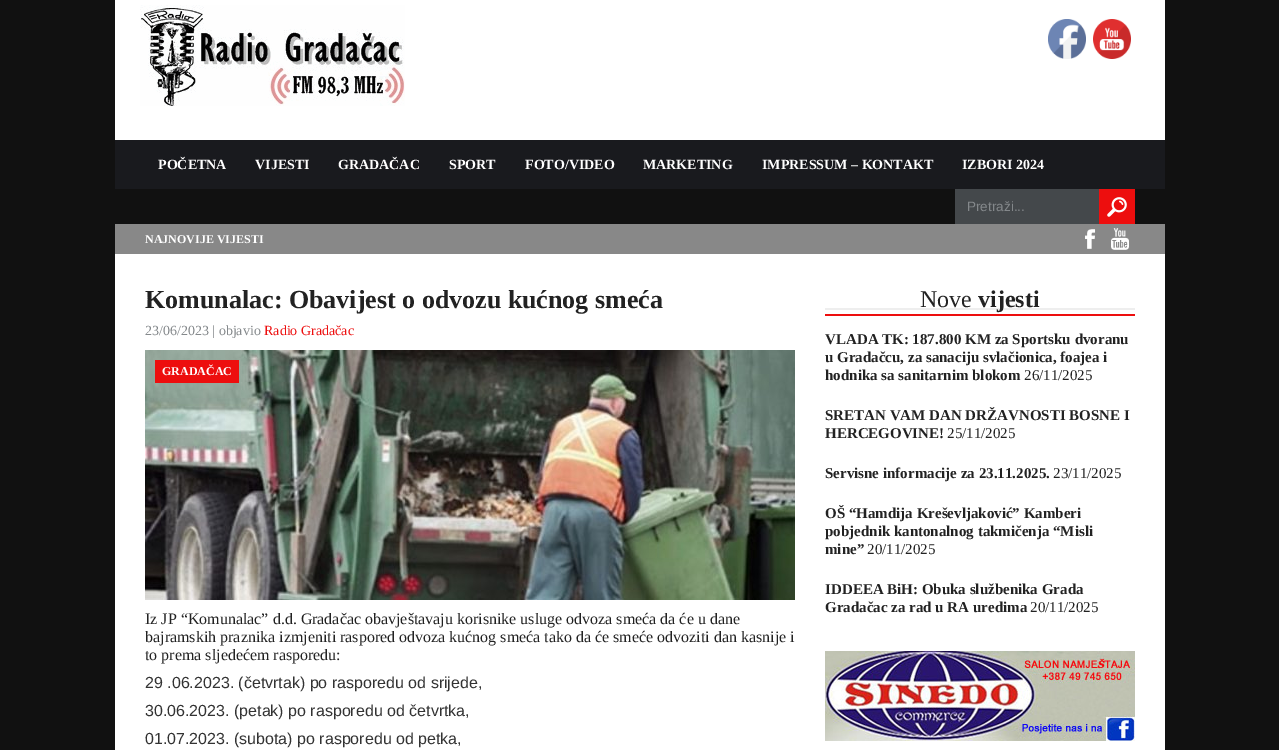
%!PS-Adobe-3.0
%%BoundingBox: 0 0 1279 750
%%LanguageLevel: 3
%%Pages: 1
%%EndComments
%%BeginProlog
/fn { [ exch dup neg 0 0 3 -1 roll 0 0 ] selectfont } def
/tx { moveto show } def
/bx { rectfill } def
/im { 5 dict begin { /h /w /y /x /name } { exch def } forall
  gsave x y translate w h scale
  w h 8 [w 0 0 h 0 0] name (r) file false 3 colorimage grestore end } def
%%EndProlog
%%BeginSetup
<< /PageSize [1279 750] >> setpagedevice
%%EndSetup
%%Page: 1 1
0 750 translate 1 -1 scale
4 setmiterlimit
0.067 setgray
0 0 1279 750 bx
1 setgray
115 0 1050 140 bx
(image0.raw) 140 5 265 101 im
(image1.raw) 1048 19 38 40 im
(image2.raw) 1093 19 38 40 im
0.098 0.102 0.118 setrgbcolor
115 140 1050 49 bx
/LiberationSerif-Bold 14 fn
1 setgray
(POČETNA) 158 169 tx
(VIJESTI) 255 169 tx
(GRADAČAC) 338 169 tx
(SPORT) 449 169 tx
(FOTO/VIDEO) 525 169 tx
(MARKETING) 643 169 tx
(IMPRESSUM – KONTAKT) 762 169 tx
(IZBORI 2024) 962 169 tx
0.267 0.282 0.294 setrgbcolor
955 189 144 35 bx
/LiberationSans-Regular 13.5 fn
0.518 0.533 0.545 setrgbcolor
(Pretraži...) 967 211 tx
0.929 0.055 0.055 setrgbcolor
1099 189 36 35 bx
(image3.raw) 1107 197 20 20 im
0.533 setgray
115 224 1050 30 bx
/LiberationSerif-Bold 12 fn
1 setgray
(NAJNOVIJE VIJESTI) 145 243 tx
(image4.raw) 1085 229 11 20 im
(image5.raw) 1111 228 18 22 im
115 254 1050 496 bx
/LiberationSerif-Bold 26 fn
0.133 setgray
(Komunalac: Obavijest o odvozu kućnog smeća) 145 308 tx
/LiberationSerif-Regular 14 fn
0.518 0.533 0.545 setrgbcolor
(23/06/2023 | objavio) 145 335 tx
0.929 0.055 0.055 setrgbcolor
(Radio Gradačac) 264 335 tx
(image6.raw) 145 350 650 250 im
155 360 84 23 bx
/LiberationSerif-Bold 12 fn
1 setgray
(GRADAČAC) 162 375 tx
/LiberationSerif-Regular 16 fn
0.133 setgray
(Iz JP “Komunalac” d.d. Gradačac obavještavaju korisnike usluge odvoza smeća da će u dane) 145 624 tx
(bajramskih praznika izmjeniti raspored odvoza kućnog smeća tako da će smeće odvoziti dan kasnije i) 145 642 tx
(to prema sljedećem rasporedu:) 145 660 tx
/LiberationSans-Regular 16 fn
0.2 setgray
(29 .06.2023. \(četvrtak\) po rasporedu od srijede,) 145 688 tx
(30.06.2023. \(petak\) po rasporedu od četvrtka,) 145 716 tx
(01.07.2023. \(subota\) po rasporedu od petka,) 145 744 tx
0.933 setgray
825 308 310 2 bx
0.929 0.055 0.055 setrgbcolor
825 314 310 2 bx
/LiberationSerif-Regular 24 fn
0.133 setgray
(Nove) 920 307 tx
/LiberationSerif-Bold 24 fn
(vijesti) 978 307 tx
/LiberationSerif-Bold 15 fn
(VLADA TK: 187.800 KM za Sportsku dvoranu) 825 344 tx
(u Gradačcu, za sanaciju svlačionica, foajea i) 825 362 tx
(hodnika sa sanitarnim blokom) 825 380 tx
/LiberationSerif-Regular 15 fn
(26/11/2025) 1024 380 tx
/LiberationSerif-Bold 15 fn
(SRETAN VAM DAN DRŽAVNOSTI BOSNE I) 825 420 tx
(HERCEGOVINE!) 825 438 tx
/LiberationSerif-Regular 15 fn
(25/11/2025) 947 438 tx
/LiberationSerif-Bold 15 fn
(Servisne informacije za 23.11.2025.) 825 478 tx
/LiberationSerif-Regular 15 fn
(23/11/2025) 1053 478 tx
/LiberationSerif-Bold 15 fn
(OŠ “Hamdija Kreševljaković” Kamberi) 825 518 tx
(pobjednik kantonalnog takmičenja “Misli) 825 536 tx
(mine”) 825 554 tx
/LiberationSerif-Regular 15 fn
(20/11/2025) 867 554 tx
/LiberationSerif-Bold 15 fn
(IDDEEA BiH: Obuka službenika Grada) 825 594 tx
(Gradačac za rad u RA uredima) 825 612 tx
/LiberationSerif-Regular 15 fn
(20/11/2025) 1030 612 tx
(image7.raw) 825 651 310 90 im
showpage
%%EOF
